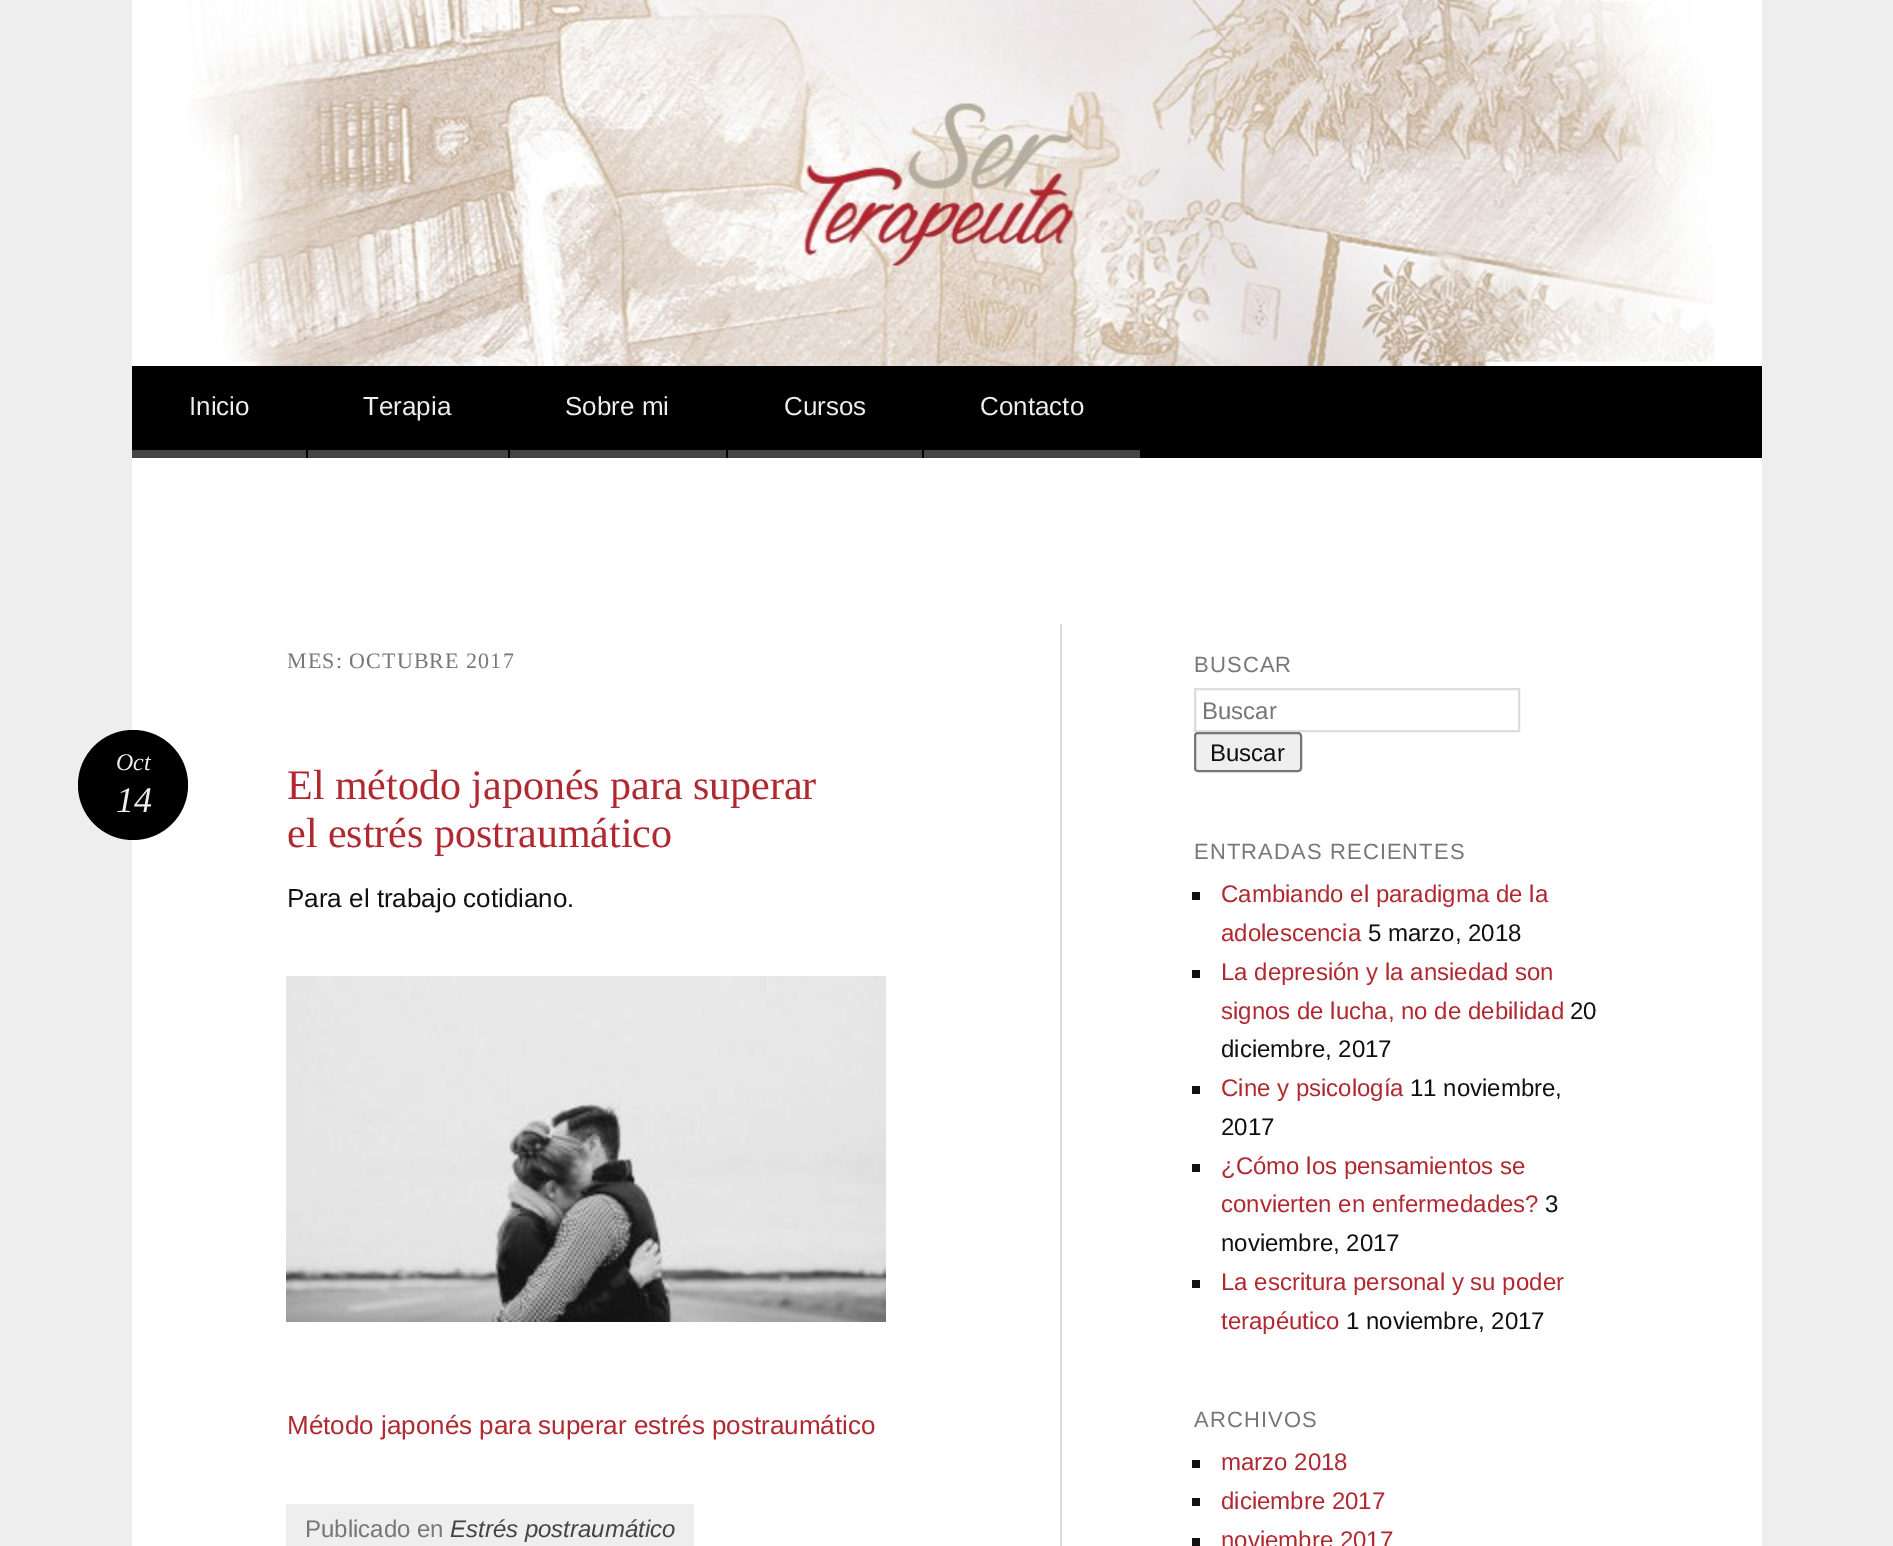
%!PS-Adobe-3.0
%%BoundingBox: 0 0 1893 1546
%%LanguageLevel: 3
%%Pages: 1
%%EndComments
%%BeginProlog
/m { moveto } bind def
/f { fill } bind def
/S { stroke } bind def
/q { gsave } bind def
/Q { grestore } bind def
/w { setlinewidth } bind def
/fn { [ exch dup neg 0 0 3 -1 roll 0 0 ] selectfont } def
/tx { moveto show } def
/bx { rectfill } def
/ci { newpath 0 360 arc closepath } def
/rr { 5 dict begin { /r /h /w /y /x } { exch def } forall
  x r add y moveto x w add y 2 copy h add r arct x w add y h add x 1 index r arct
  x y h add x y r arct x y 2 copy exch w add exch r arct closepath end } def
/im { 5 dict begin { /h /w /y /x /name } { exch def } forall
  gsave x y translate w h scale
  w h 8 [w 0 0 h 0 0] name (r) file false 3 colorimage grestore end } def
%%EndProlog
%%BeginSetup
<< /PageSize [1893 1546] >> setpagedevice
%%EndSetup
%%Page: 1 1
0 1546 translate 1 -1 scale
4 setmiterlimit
0.933 setgray
0 0 1893 1546 bx
1 setgray
132 0 1630 1546 bx
(image0.raw) 188 0 1527 366 im
0 setgray
132 366 1630 92 bx
0.267 setgray
132 450 174 8 bx
/LiberationSans-Regular 26 fn
0.933 setgray
(Inicio) 189 415 tx
0.267 setgray
308 450 200 8 bx
0.933 setgray
(Terapia) 363 415 tx
0.267 setgray
510 450 216 8 bx
0.933 setgray
(Sobre mi) 565 415 tx
0.267 setgray
728 450 194 8 bx
0.933 setgray
(Cursos) 784 415 tx
0.267 setgray
924 450 216 8 bx
0.933 setgray
(Contacto) 980 415 tx
/LiberationSerif-Regular 22 fn
0.467 setgray
287 668 m 1.1 0 (MES: OCTUBRE 2017) ashow
0 setgray
133 785 55 ci f
/LiberationSerif-Italic 24 fn
0.933 setgray
(Oct) 116 770 tx
/LiberationSerif-Italic 36 fn
(14) 116 812 tx
286 1504 408 42 bx
/LiberationSans-Regular 24 fn
0.467 setgray
(Publicado en) 305 1537 tx
/LiberationSans-Italic 24 fn
0.267 setgray
(Estrés postraumático) 450 1537 tx
/LiberationSerif-Regular 42 fn
0.694 0.161 0.188 setrgbcolor
(El método japonés para superar) 287 799 tx
(el estrés postraumático) 287 847 tx
/LiberationSans-Regular 26 fn
0.067 setgray
(Para el trabajo cotidiano.) 287 907 tx
(image1.raw) 286 976 600 346 im
0.694 0.161 0.188 setrgbcolor
(Método japonés para superar estrés postraumático) 287 1434 tx
0.867 setgray
1060 624 2 922 bx
/LiberationSans-Regular 22 fn
0.467 setgray
1194 672 m 1.1 0 (BUSCAR) ashow
0.867 setgray
2 w
1195 689 324 42 rectstroke
/LiberationSans-Regular 24 fn
0.467 setgray
(Buscar) 1202 719 tx
0.937 setgray
1195 733 106 38 3 rr q f Q
0.463 setgray
S
0.067 setgray
(Buscar) 1210 761 tx
/LiberationSans-Regular 22 fn
0.467 setgray
1194 859 m 1.1 0 (ENTRADAS RECIENTES) ashow
0.067 setgray
1192 892 8 8 bx
/LiberationSans-Regular 24 fn
0.694 0.161 0.188 setrgbcolor
(Cambiando el paradigma de la) 1221 902 tx
(adolescencia) 1221 941 tx
0.067 setgray
(5 marzo, 2018) 1368 941 tx
1192 970 8 8 bx
0.694 0.161 0.188 setrgbcolor
(La depresión y la ansiedad son) 1221 980 tx
(signos de lucha, no de debilidad) 1221 1019 tx
0.067 setgray
(20) 1570 1019 tx
(diciembre, 2017) 1221 1057 tx
1192 1086 8 8 bx
0.694 0.161 0.188 setrgbcolor
(Cine y psicología) 1221 1096 tx
0.067 setgray
(11 noviembre,) 1410 1096 tx
(2017) 1221 1135 tx
1192 1164 8 8 bx
0.694 0.161 0.188 setrgbcolor
(¿Cómo los pensamientos se) 1221 1174 tx
(convierten en enfermedades?) 1221 1212 tx
0.067 setgray
(3) 1545 1212 tx
(noviembre, 2017) 1221 1251 tx
1192 1280 8 8 bx
0.694 0.161 0.188 setrgbcolor
(La escritura personal y su poder) 1221 1290 tx
(terapéutico) 1221 1329 tx
0.067 setgray
(1 noviembre, 2017) 1346 1329 tx
/LiberationSans-Regular 22 fn
0.467 setgray
1194 1427 m 1.1 0 (ARCHIVOS) ashow
0.067 setgray
1192 1460 8 8 bx
/LiberationSans-Regular 24 fn
0.694 0.161 0.188 setrgbcolor
(marzo 2018) 1221 1470 tx
0.067 setgray
1192 1498 8 8 bx
0.694 0.161 0.188 setrgbcolor
(diciembre 2017) 1221 1509 tx
0.067 setgray
1192 1538 8 8 bx
0.694 0.161 0.188 setrgbcolor
(noviembre 2017) 1221 1548 tx
showpage
%%EOF
